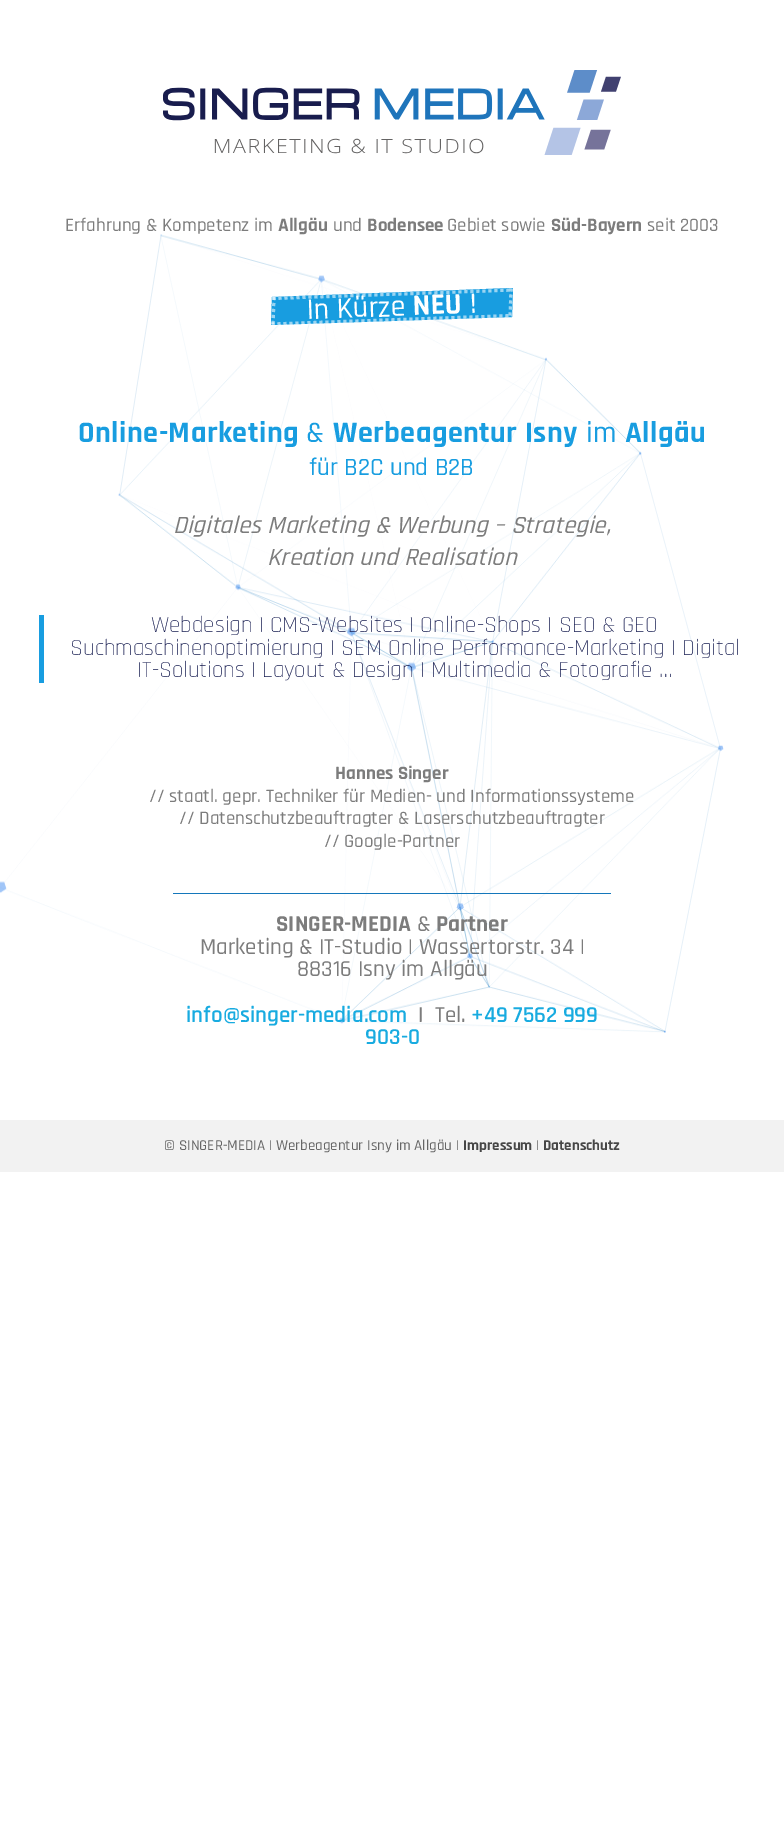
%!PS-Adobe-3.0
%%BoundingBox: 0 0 784 1824
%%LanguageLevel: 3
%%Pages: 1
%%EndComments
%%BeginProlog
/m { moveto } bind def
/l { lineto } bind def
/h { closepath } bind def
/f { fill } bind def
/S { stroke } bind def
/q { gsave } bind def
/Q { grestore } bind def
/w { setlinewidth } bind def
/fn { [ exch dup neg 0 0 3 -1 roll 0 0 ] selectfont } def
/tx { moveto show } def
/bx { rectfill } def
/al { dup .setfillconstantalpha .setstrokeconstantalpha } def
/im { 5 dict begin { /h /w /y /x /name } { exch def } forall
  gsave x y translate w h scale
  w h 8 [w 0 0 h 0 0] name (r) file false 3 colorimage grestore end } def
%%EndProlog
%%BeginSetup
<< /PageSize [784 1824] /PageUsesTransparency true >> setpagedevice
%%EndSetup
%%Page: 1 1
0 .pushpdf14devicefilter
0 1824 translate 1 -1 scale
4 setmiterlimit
1 setgray
0 0 784 1824 bx
(image0.raw) 163 70 458 85 im
/Rajdhani-Medium 19 fn
0.486 setgray
(Erfahrung & Kompetenz im) 65 231 tx
(image1.raw) 0 234 724 799 im
/Rajdhani-Bold 19 fn
(Allgäu) 278 231 tx
/Rajdhani-Medium 19 fn
(und) 333 231 tx
/Rajdhani-Bold 19 fn
(Bodensee) 367 231 tx
/Rajdhani-Medium 19 fn
(Gebiet sowie) 447 231 tx
/Rajdhani-Bold 19 fn
(Süd-Bayern) 551 231 tx
/Rajdhani-Medium 19 fn
(seit 2003) 647 231 tx
0.094 0.616 0.878 setrgbcolor
272 297 m 513 288 l 512 317 l 271 325 l h f
0.56 al
1 setgray
3 w
[3 3] 0 setdash
272.5 298.5 m 512.5 290 l S
511 288.5 m 510 317 l S
271.5 324 m 511.5 315.5 l S
274 297 m 273 325.5 l S
/Rajdhani-Medium 30 fn
1 al
q 307 319 translate -2 rotate 0 0 m (In Kürze) show Q
/Rajdhani-Bold 30 fn
q 413 315 translate -2 rotate 0 0 m (NEU) show Q
/Rajdhani-Medium 30 fn
q 470 313 translate -2 rotate 0 0 m (!) show Q
/Rajdhani-Bold 30 fn
0.094 0.616 0.878 setrgbcolor
78 442 m 0.5 0 (Online-Marketing) ashow
/Rajdhani-Medium 30 fn
306 442 m 0.5 0 (&) ashow
/Rajdhani-Bold 30 fn
333 442 m 0.5 0 (Werbeagentur Isny) ashow
/Rajdhani-Medium 30 fn
586 442 m 0.5 0 (im) ashow
/Rajdhani-Bold 30 fn
625 442 m 0.5 0 (Allgäu) ashow
/Rajdhani-Medium 25 fn
(für B2C und B2B) 309 475 tx
/Rajdhani-MediumItalic 25 fn
0.486 setgray
(Digitales Marketing & Werbung – Strategie,) 173 533 tx
(Kreation und Realisation) 267 565 tx
0.094 0.616 0.878 setrgbcolor
39 615 5 68 bx
/Rajdhani-Light 23 fn
0.082 0.106 0.31 setrgbcolor
(Webdesign | CMS-Websites | Online-Shops | SEO & GEO) 151 632 tx
(Suchmaschinenoptimierung | SEM Online Performance-Marketing | Digital) 70 655 tx
(IT-Solutions | Layout & Design | Multimedia & Fotografie …) 137 677 tx
/Rajdhani-Bold 19 fn
0.486 setgray
(Hannes Singer) 335 779 tx
/Rajdhani-Medium 19 fn
(// staatl. gepr. Techniker für Medien- und Informationssysteme) 149 802 tx
(// Datenschutzbeauftragter & Laserschutzbeauftragter) 179 824 tx
(// Google-Partner) 324 847 tx
0.078 0.467 0.733 setrgbcolor
173 893 438 1 bx
/Rajdhani-Bold 23 fn
0.486 setgray
(SINGER-MEDIA) 276 931 tx
/Rajdhani-Medium 23 fn
(&) 417 931 tx
/Rajdhani-Bold 23 fn
(Partner) 436 931 tx
/Rajdhani-Medium 23 fn
(Marketing & IT-Studio | Wassertorstr. 34 |) 200 954 tx
(88316 Isny im Allgäu) 297 976 tx
/Rajdhani-SemiBold 23 fn
0.094 0.671 0.878 setrgbcolor
(info@singer-media.com) 186 1022 tx
/Rajdhani-Bold 23 fn
0.486 setgray
(|) 418 1022 tx
/Rajdhani-Medium 23 fn
(Tel.) 435 1022 tx
/Rajdhani-SemiBold 23 fn
0.094 0.671 0.878 setrgbcolor
(+49 7562 999) 471 1022 tx
(903-0) 365 1044 tx
0.949 setgray
0 1120 784 52 bx
/Rajdhani-Medium 15 fn
0.4 setgray
(© SINGER-MEDIA | Werbeagentur Isny im Allgäu |) 164 1150 tx
/Rajdhani-Bold 15 fn
0.278 setgray
(Impressum) 463 1150 tx
/Rajdhani-Medium 15 fn
0.4 setgray
(|) 536 1150 tx
/Rajdhani-Bold 15 fn
0.278 setgray
(Datenschutz) 543 1150 tx
.poppdf14devicefilter showpage
%%EOF
